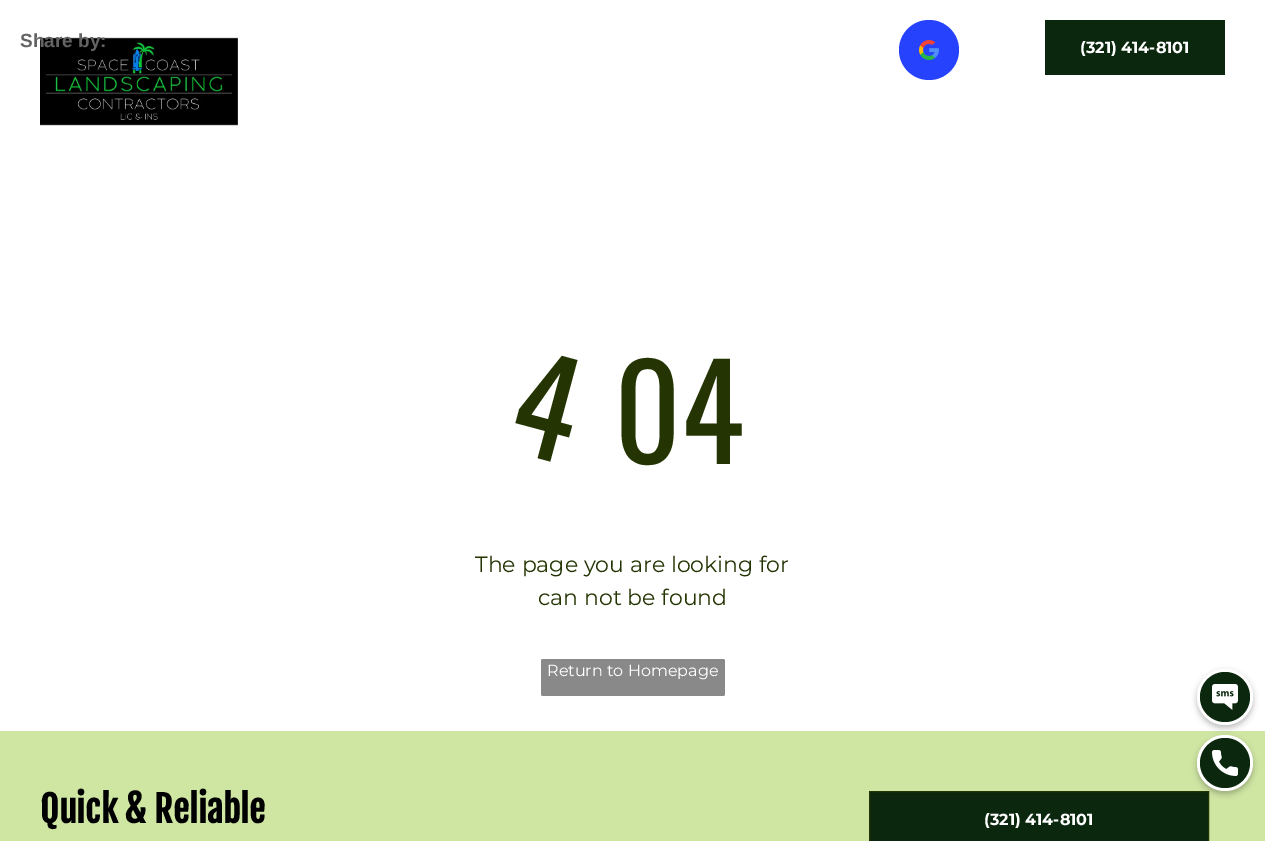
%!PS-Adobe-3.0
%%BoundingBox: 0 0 1265 841
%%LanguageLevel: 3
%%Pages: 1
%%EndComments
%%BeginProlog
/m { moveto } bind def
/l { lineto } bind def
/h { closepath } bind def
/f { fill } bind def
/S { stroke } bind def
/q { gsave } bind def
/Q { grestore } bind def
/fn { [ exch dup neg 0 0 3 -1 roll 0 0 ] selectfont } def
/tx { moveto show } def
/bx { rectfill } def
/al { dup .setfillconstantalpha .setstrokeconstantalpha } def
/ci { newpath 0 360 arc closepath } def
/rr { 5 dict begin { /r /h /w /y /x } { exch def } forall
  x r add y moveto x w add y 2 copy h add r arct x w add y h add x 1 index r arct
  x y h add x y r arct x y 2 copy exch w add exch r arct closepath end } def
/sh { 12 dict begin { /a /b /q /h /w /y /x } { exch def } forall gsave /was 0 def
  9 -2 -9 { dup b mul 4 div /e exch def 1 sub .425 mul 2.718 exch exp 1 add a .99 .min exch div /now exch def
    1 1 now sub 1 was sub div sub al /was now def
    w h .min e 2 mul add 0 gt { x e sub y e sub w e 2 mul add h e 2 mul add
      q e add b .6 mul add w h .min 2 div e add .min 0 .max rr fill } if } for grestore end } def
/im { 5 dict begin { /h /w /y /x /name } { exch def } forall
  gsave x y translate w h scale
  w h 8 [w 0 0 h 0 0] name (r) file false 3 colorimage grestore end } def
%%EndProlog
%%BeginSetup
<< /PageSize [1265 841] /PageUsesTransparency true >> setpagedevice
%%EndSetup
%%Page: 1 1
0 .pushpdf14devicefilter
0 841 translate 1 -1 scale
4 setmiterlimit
1 setgray
0 0 1265 841 bx
(image0.raw) 40 37 198 89 im
/LiberationSans-Bold 19 fn
0.388 setgray
(Share by:) 20 47 tx
0.153 0.259 0.988 setrgbcolor
929 50 30 ci f
(image1.raw) 919 40 20 20 im
0.043 0.157 0.059 setrgbcolor
1045 20 180 55 bx
/Montserrat-Bold 16 fn
1 setgray
(\(321\) 414-8101) 1080 53 tx
/Oswald-Regular 130 fn
0.141 0.204 0.012 setrgbcolor
q 503 449 translate 15 rotate 0 0 m (4) show Q
(04) 614 464 tx
/Montserrat-Regular 22 fn
(The page you are looking for) 475 572 tx
(can not be found) 538 605 tx
0.537 setgray
541 659 184 37 2 rr f
/Montserrat-Regular 16 fn
1 setgray
(Return to Homepage) 547 676 tx
0.812 0.902 0.639 setrgbcolor
0 731 1265 110 bx
0 setgray
1197 672 56 56 28 3 0.25 sh
1 setgray
1225 697 28 ci f
0.043 0.157 0.059 setrgbcolor
1225 697 25 ci f
(image2.raw) 1212 684 26 26 im
869.5 791.5 m 1208.5 791.5 l 1208.5 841.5 l 869.5 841.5 l h q f Q
0.141 0.204 0.012 setrgbcolor
S
0 setgray
1197 738 56 56 28 3 0.25 sh
1 setgray
1225 763 28 ci f
0.043 0.157 0.059 setrgbcolor
1225 763 25 ci f
(image3.raw) 1212 750 26 26 im
/FjallaOne-Bold 36 fn
0 setgray
(Quick & Reliable) 40 823 tx
/Montserrat-Bold 16 fn
1 setgray
(\(321\) 414-8101) 984 825 tx
.poppdf14devicefilter showpage
%%EOF
